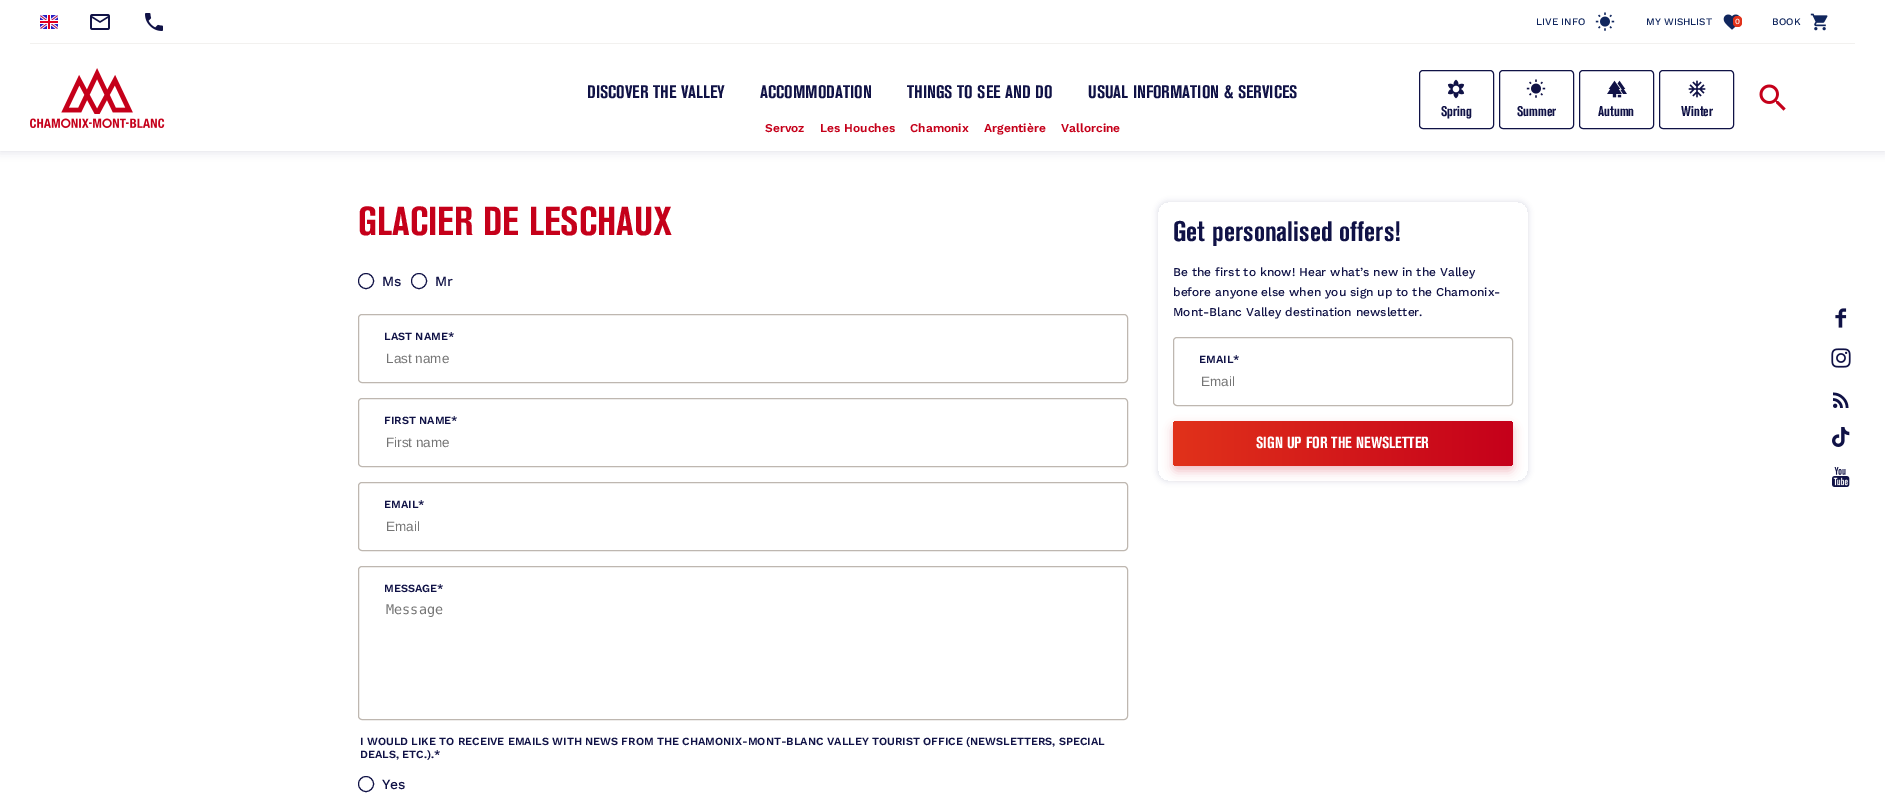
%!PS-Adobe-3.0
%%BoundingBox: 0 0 1885 799
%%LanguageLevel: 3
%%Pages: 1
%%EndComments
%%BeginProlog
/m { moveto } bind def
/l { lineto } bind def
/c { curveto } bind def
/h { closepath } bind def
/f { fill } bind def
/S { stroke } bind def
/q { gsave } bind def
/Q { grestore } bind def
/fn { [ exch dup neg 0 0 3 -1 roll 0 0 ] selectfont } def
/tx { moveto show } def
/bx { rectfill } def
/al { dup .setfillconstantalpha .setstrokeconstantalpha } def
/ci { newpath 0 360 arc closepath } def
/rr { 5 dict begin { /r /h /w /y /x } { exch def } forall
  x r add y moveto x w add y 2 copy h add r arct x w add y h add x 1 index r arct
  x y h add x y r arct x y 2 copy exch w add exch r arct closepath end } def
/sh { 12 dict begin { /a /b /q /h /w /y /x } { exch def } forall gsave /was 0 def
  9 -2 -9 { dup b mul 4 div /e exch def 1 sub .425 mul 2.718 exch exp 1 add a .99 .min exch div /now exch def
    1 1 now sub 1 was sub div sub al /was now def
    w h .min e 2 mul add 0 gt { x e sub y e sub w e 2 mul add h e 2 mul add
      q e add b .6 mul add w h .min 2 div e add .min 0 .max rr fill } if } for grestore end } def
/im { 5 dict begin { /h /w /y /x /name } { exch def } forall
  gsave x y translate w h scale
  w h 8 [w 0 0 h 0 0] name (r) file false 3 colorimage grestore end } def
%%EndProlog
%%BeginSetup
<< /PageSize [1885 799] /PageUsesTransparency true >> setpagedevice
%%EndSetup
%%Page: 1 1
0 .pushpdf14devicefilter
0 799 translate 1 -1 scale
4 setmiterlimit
1 setgray
0 0 1885 799 bx
0.063 0.071 0.275 setrgbcolor
0 0 1885 151 0 5 0.15 sh
1 setgray
0 0 1885 151 bx
(image0.raw) 40 15 18 14 im
(image1.raw) 90 14 20 16 im
(image2.raw) 145 13 18 18 im
/WorkSans-Medium 10 fn
0.063 0.149 0.365 setrgbcolor
(LIVE INFO) 1536 25 tx
(image3.raw) 1595 12 20 19 im
(MY WISHLIST) 1646 25 tx
(image4.raw) 1723 14 18 16 im
0.882 0.196 0.102 setrgbcolor
1733 16 9 11 4 rr f
/WorkSans-Medium 8 fn
1 setgray
(0) 1735 24 tx
/WorkSans-Medium 10 fn
0.063 0.149 0.365 setrgbcolor
(BOOK) 1772 25 tx
(image5.raw) 1810 13 18 18 im
0.949 0.945 0.937 setrgbcolor
30 43 1825 1 bx
(image6.raw) 30 68 135 60 im
/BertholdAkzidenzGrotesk-Bold 18 fn
0.063 0.071 0.275 setrgbcolor
(DISCOVER THE VALLEY) 587 98 tx
(ACCOMMODATION) 760 98 tx
(THINGS TO SEE AND DO) 907 98 tx
(USUAL INFORMATION & SERVICES) 1088 98 tx
(image7.raw) 1835 308 12 20 im
(image8.raw) 1831 348 20 20 im
(image9.raw) 1833 392 16 16 im
(image10.raw) 1832 427 18 20 im
(image11.raw) 1832 467 18 20 im
/WorkSans-SemiBold 12 fn
0.773 0 0.102 setrgbcolor
(Servoz) 765 132 tx
(Les Houches) 820 132 tx
(Chamonix) 910 132 tx
(Argentière) 984 132 tx
(Vallorcine) 1061 132 tx
0.063 0.071 0.275 setrgbcolor
1419.5 70.5 74 58 3.5 rr S
(image12.raw) 1447 79 18 20 im
/BertholdAkzidenzGrotesk-Bold 14 fn
(Spring) 1441 116 tx
1499.5 70.5 74 58 3.5 rr S
(image13.raw) 1526 79 20 19 im
(Summer) 1517 116 tx
1579.5 70.5 74 58 3.5 rr S
(image14.raw) 1607 80 20 18 im
(Autumn) 1598 116 tx
1659.5 70.5 74 58 3.5 rr S
(image15.raw) 1688 80 18 18 im
(Winter) 1681 116 tx
(image16.raw) 1759 84 27 27 im
/BertholdAkzidenzGrotesk-Bold 40 fn
0.773 0 0.102 setrgbcolor
(GLACIER DE LESCHAUX) 358 235 tx
0.063 0.071 0.275 setrgbcolor
366 281 7.5 ci S
/WorkSans-Medium 14 fn
(Ms) 382 286 tx
419 281 7.5 ci S
(Mr) 435 286 tx
0.745 0.718 0.69 setrgbcolor
358.5 314.5 769 68 3.5 rr S
/WorkSans-SemiBold 11 fn
0.063 0.071 0.275 setrgbcolor
(LAST NAME*) 384 340 tx
/LiberationSans-Regular 13.5 fn
0.459 setgray
(Last name) 386 363 tx
0.745 0.718 0.69 setrgbcolor
358.5 398.5 769 68 3.5 rr S
/WorkSans-SemiBold 11 fn
0.063 0.071 0.275 setrgbcolor
(FIRST NAME*) 384 424 tx
/LiberationSans-Regular 13.5 fn
0.459 setgray
(First name) 386 447 tx
0.745 0.718 0.69 setrgbcolor
358.5 482.5 769 68 3.5 rr S
/WorkSans-SemiBold 11 fn
0.063 0.071 0.275 setrgbcolor
(EMAIL*) 384 508 tx
/LiberationSans-Regular 13.5 fn
0.459 setgray
(Email) 386 531 tx
0.745 0.718 0.69 setrgbcolor
358.5 566.5 769 153 3.5 rr S
/WorkSans-SemiBold 11 fn
0.063 0.071 0.275 setrgbcolor
(MESSAGE*) 384 592 tx
/DejaVuSansMono-Regular 13.5 fn
0.459 setgray
(Message) 386 614 tx
/WorkSans-SemiBold 11 fn
0.063 0.071 0.275 setrgbcolor
(I WOULD LIKE TO RECEIVE EMAILS WITH NEWS FROM THE CHAMONIX-MONT-BLANC VALLEY TOURIST OFFICE \(NEWSLETTERS, SPECIAL) 360 745 tx
(DEALS, ETC.\).*) 360 758 tx
366 784 7.5 ci S
/WorkSans-Medium 14 fn
(Yes) 382 789 tx
q
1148 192 m 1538 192 l 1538 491 l 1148 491 l h 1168 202 m 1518 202 l 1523.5 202 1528 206.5 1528 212 c 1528 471 l 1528 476.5 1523.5 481 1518 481 c 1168 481 l 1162.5 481 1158 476.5 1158 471 c 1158 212 l 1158 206.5 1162.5 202 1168 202 c h eoclip newpath
0.063 0.149 0.365 setrgbcolor
1158 202 370 279 10 3 0.15 sh
Q
/BertholdAkzidenzGrotesk-Bold 28 fn
(Get personalised offers!) 1173 241 tx
/WorkSans-Medium 12 fn
(Be the first to know! Hear what’s new in the Valley) 1173 276 tx
(before anyone else when you sign up to the Chamonix-) 1173 296 tx
(Mont-Blanc Valley destination newsletter.) 1173 316 tx
0.745 0.718 0.69 setrgbcolor
1173.5 337.5 339 68 3.5 rr S
/WorkSans-SemiBold 11 fn
0.063 0.071 0.275 setrgbcolor
(EMAIL*) 1199 363 tx
/LiberationSans-Regular 13.5 fn
0.459 setgray
(Email) 1201 386 tx
0.773 0 0.102 setrgbcolor
1173 426 340 45 4 5 0.25 sh
q 1173 421 340 45 4 rr clip newpath
<< /ShadingType 2 /ColorSpace /DeviceRGB /Coords [1513 443 1173 444] /Extend [true true] /Function << /FunctionType 2 /Domain [0 1] /C0 [0.773 0 0.102] /C1 [0.882 0.196 0.102] /N 1 >> >> shfill Q
/BertholdAkzidenzGrotesk-Bold 16 fn
1 setgray
(SIGN UP FOR THE NEWSLETTER) 1256 448 tx
.poppdf14devicefilter showpage
%%EOF
